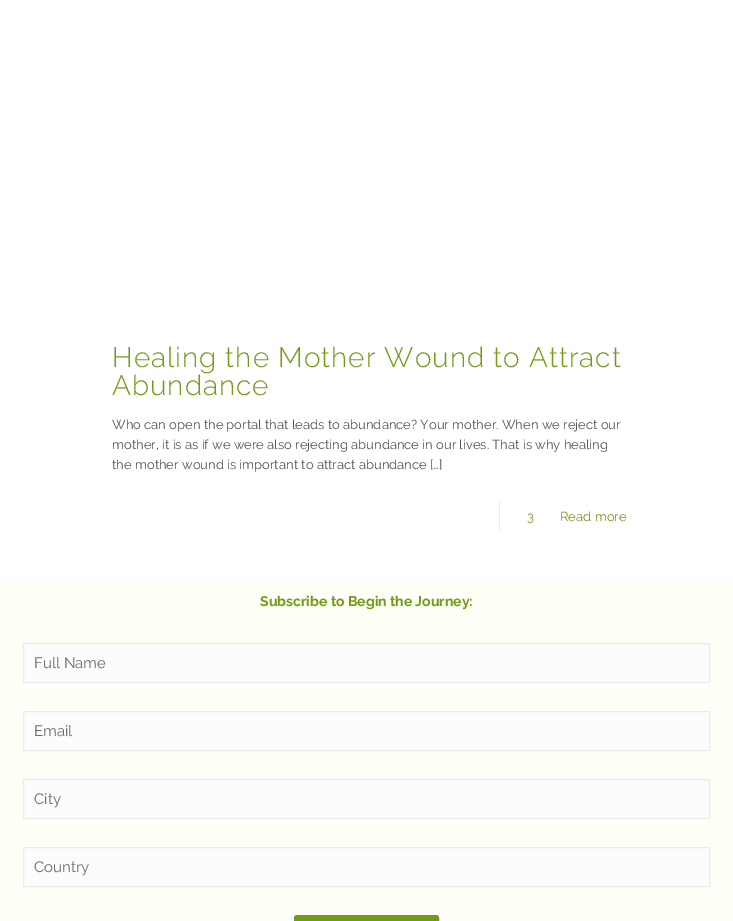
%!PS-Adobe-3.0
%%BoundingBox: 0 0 733 921
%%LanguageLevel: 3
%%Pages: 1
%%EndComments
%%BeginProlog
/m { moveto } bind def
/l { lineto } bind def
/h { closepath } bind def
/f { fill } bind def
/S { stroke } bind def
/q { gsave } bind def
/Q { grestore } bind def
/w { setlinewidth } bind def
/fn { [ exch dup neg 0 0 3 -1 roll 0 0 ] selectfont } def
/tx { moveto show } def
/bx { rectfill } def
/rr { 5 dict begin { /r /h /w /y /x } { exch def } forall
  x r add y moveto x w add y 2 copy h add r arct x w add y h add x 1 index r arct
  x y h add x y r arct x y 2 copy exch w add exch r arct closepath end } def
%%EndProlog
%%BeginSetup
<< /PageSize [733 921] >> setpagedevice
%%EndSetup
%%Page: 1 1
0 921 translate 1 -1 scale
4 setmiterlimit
1 setgray
0 0 733 921 bx
/Raleway-Light 28 fn
0.439 0.612 0.078 setrgbcolor
112 367 m 1 0 (Healing the Mother Wound to Attract) ashow
112 395 m 1 0 (Abundance) ashow
/Raleway-Regular 13 fn
0.357 0.329 0.31 setrgbcolor
(Who can open the portal that leads to abundance? Your mother. When we reject our) 112 429 tx
(mother, it is as if we were also rejecting abundance in our lives. That is why healing) 112 449 tx
(the mother wound is important to attract abundance […]) 112 469 tx
0.922 setgray
499 502 1 30 bx
0.439 0.612 0.078 setrgbcolor
(3) 527 521 tx
(Read more) 560 521 tx
1 1 0.969 setrgbcolor
0 579 733 342 bx
/Raleway-Bold 14 fn
0.439 0.612 0.078 setrgbcolor
(Subscribe to Begin the Journey:) 260 606 tx
0.988 setgray
23.5 643.5 m 709.5 643.5 l 709.5 682.5 l 23.5 682.5 l h q f Q
0.922 setgray
S
/Raleway-Regular 15 fn
0.42 setgray
(Full Name) 34 668 tx
0.988 setgray
23.5 711.5 m 709.5 711.5 l 709.5 750.5 l 23.5 750.5 l h q f Q
0.922 setgray
S
0.42 setgray
(Email) 34 736 tx
0.988 setgray
23.5 779.5 m 709.5 779.5 l 709.5 818.5 l 23.5 818.5 l h q f Q
0.922 setgray
S
0.42 setgray
(City) 34 804 tx
0.988 setgray
23.5 847.5 m 709.5 847.5 l 709.5 886.5 l 23.5 886.5 l h q f Q
0.922 setgray
S
0.42 setgray
(Country) 34 872 tx
0.439 0.612 0.078 setrgbcolor
295 916 143 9 2 rr q f Q
2 w
S
showpage
%%EOF
